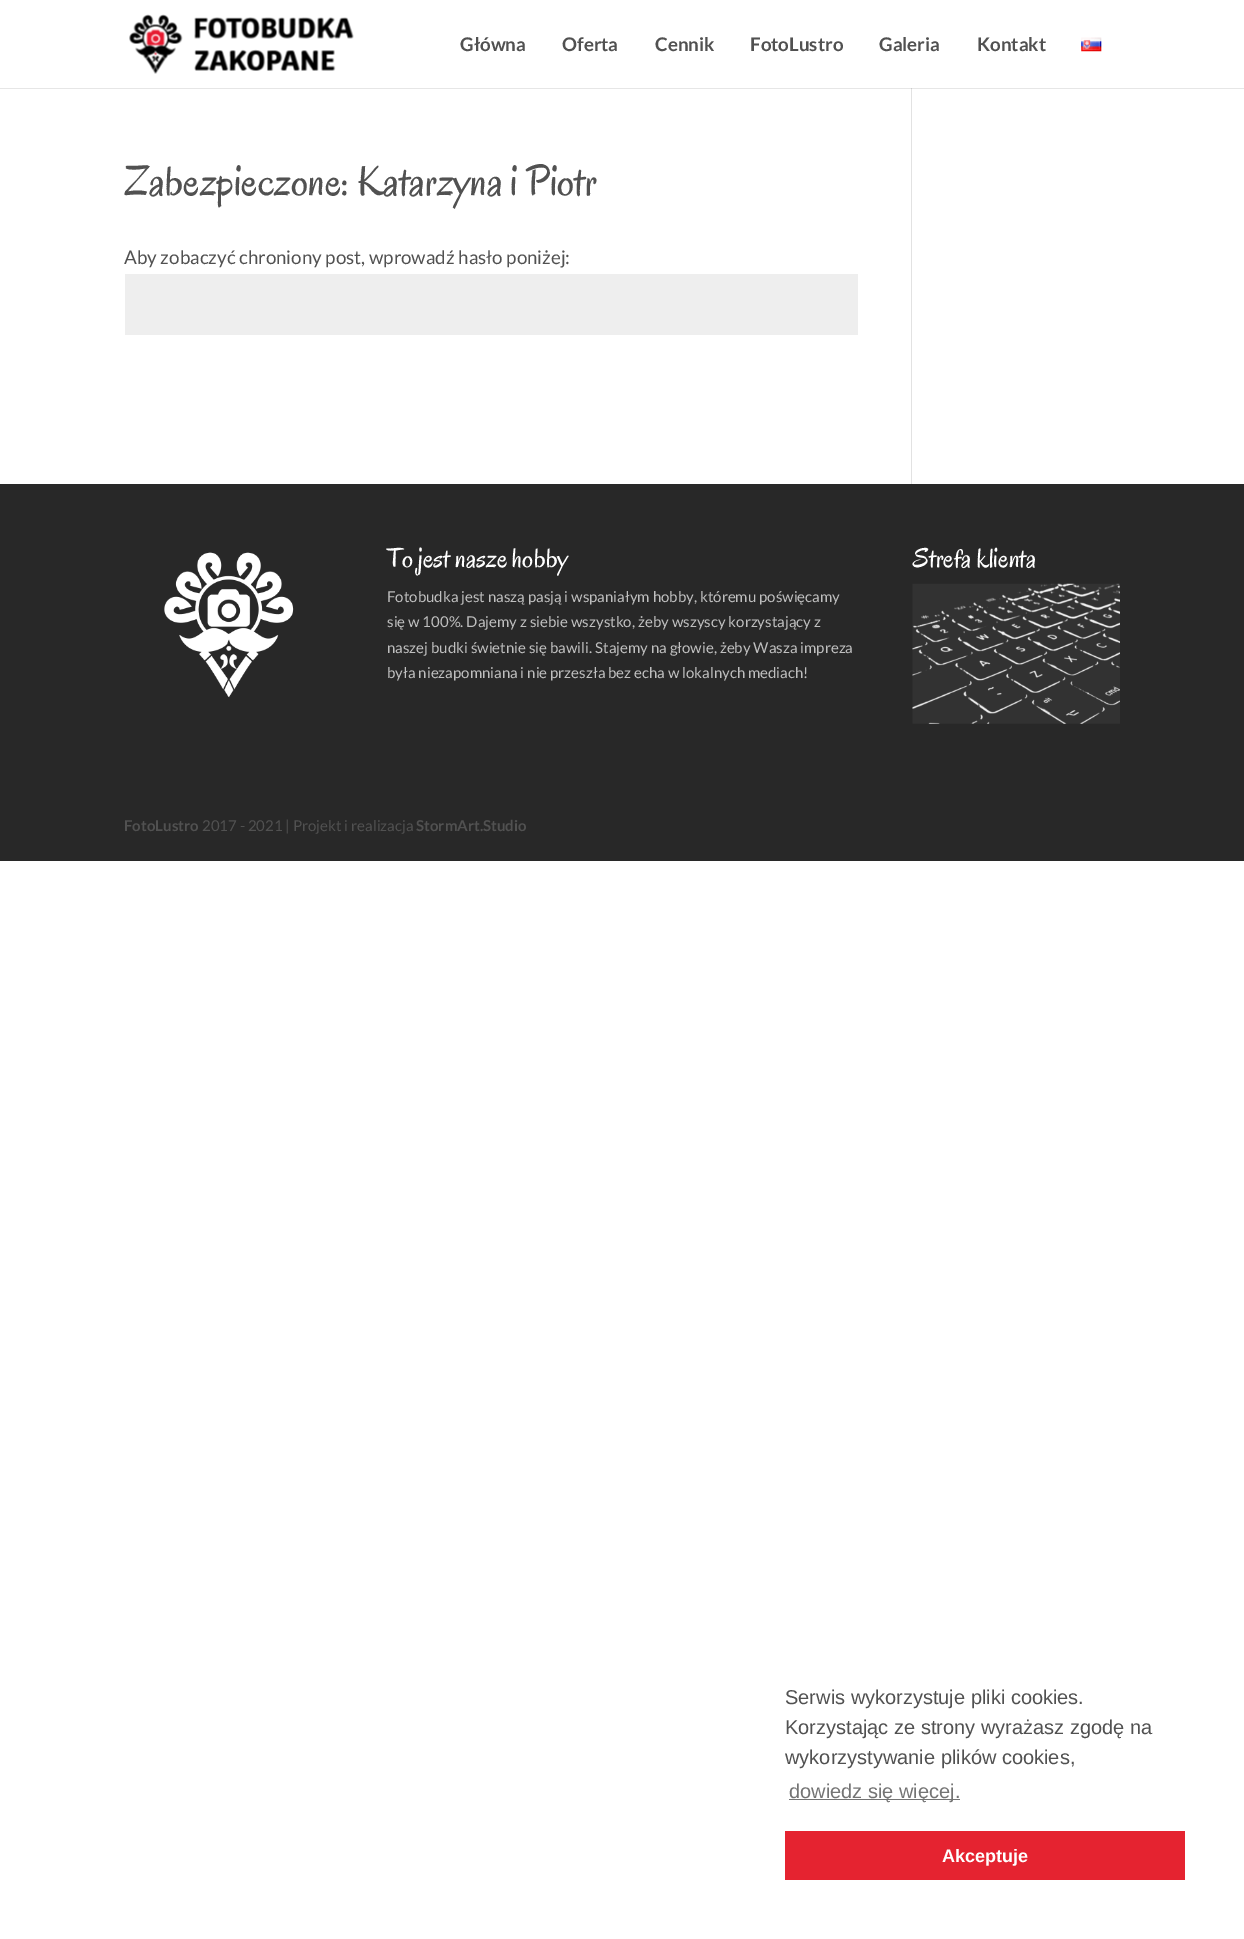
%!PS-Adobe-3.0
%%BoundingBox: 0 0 1244 1939
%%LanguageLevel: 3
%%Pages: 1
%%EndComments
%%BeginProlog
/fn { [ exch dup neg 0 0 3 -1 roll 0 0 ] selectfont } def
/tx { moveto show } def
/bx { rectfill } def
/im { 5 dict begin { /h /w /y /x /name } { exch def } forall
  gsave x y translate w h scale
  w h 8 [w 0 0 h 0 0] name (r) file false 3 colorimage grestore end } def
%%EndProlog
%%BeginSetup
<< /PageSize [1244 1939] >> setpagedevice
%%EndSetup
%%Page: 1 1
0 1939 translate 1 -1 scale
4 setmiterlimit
1 setgray
0 0 1244 1939 bx
0.902 setgray
0 88 1244 1 bx
(image0.raw) 129 14 225 60 im
/Lato-Bold 18.75 fn
0.318 setgray
(Główna) 460 51 tx
(Oferta) 562 51 tx
(Cennik) 655 51 tx
(FotoLustro) 750 51 tx
(Galeria) 879 51 tx
(Kontakt) 977 51 tx
(image1.raw) 1081 37 21 15 im
/Oregano-Regular 42.5 fn
(Zabezpieczone: Katarzyna i Piotr) 124 195 tx
/Lato-Regular 18.75 fn
(Aby zobaczyć chroniony post, wprowadź hasło poniżej:) 124 264 tx
0.933 setgray
125 274 733 61 bx
0.886 setgray
911 88 1 396 bx
0.796 setgray
911 88 1 1 bx
0.157 setgray
0 484 1244 377 bx
(image2.raw) 164 552 130 146 im
/Oregano-Regular 27.5 fn
1 setgray
(To jest nasze hobby) 387 567 tx
/Lato-Regular 15 fn
0.749 setgray
(Fotobudka jest naszą pasją i wspaniałym hobby, któremu poświęcamy) 387 602 tx
(się w 100%. Dajemy z siebie wszystko, żeby wszyscy korzystający z) 387 627 tx
(naszej budki świetnie się bawili. Stajemy na głowie, żeby Wasza impreza) 387 653 tx
(była niezapomniana i nie przeszła bez echa w lokalnych mediach!) 387 678 tx
/Oregano-Regular 27.5 fn
1 setgray
(Strefa klienta) 913 567 tx
(image3.raw) 912 583 208 141 im
/Lato-Bold 15 fn
0.318 setgray
(FotoLustro) 124 831 tx
/Lato-Regular 15 fn
(2017 - 2021 | Projekt i realizacja) 202 831 tx
/Lato-Bold 15 fn
(StormArt.Studio) 416 831 tx
/LiberationSans-Regular 20 fn
(Serwis wykorzystuje pliki cookies.) 785 1704 tx
(Korzystając ze strony wyrażasz zgodę na) 785 1734 tx
(wykorzystywanie plików cookies,) 785 1764 tx
0.455 setgray
789 1799 171 1 bx
(dowiedz się więcej.) 789 1798 tx
0.898 0.137 0.188 setrgbcolor
785 1831 400 49 bx
/LiberationSans-Bold 18 fn
1 setgray
(Akceptuje) 942 1862 tx
showpage
%%EOF
